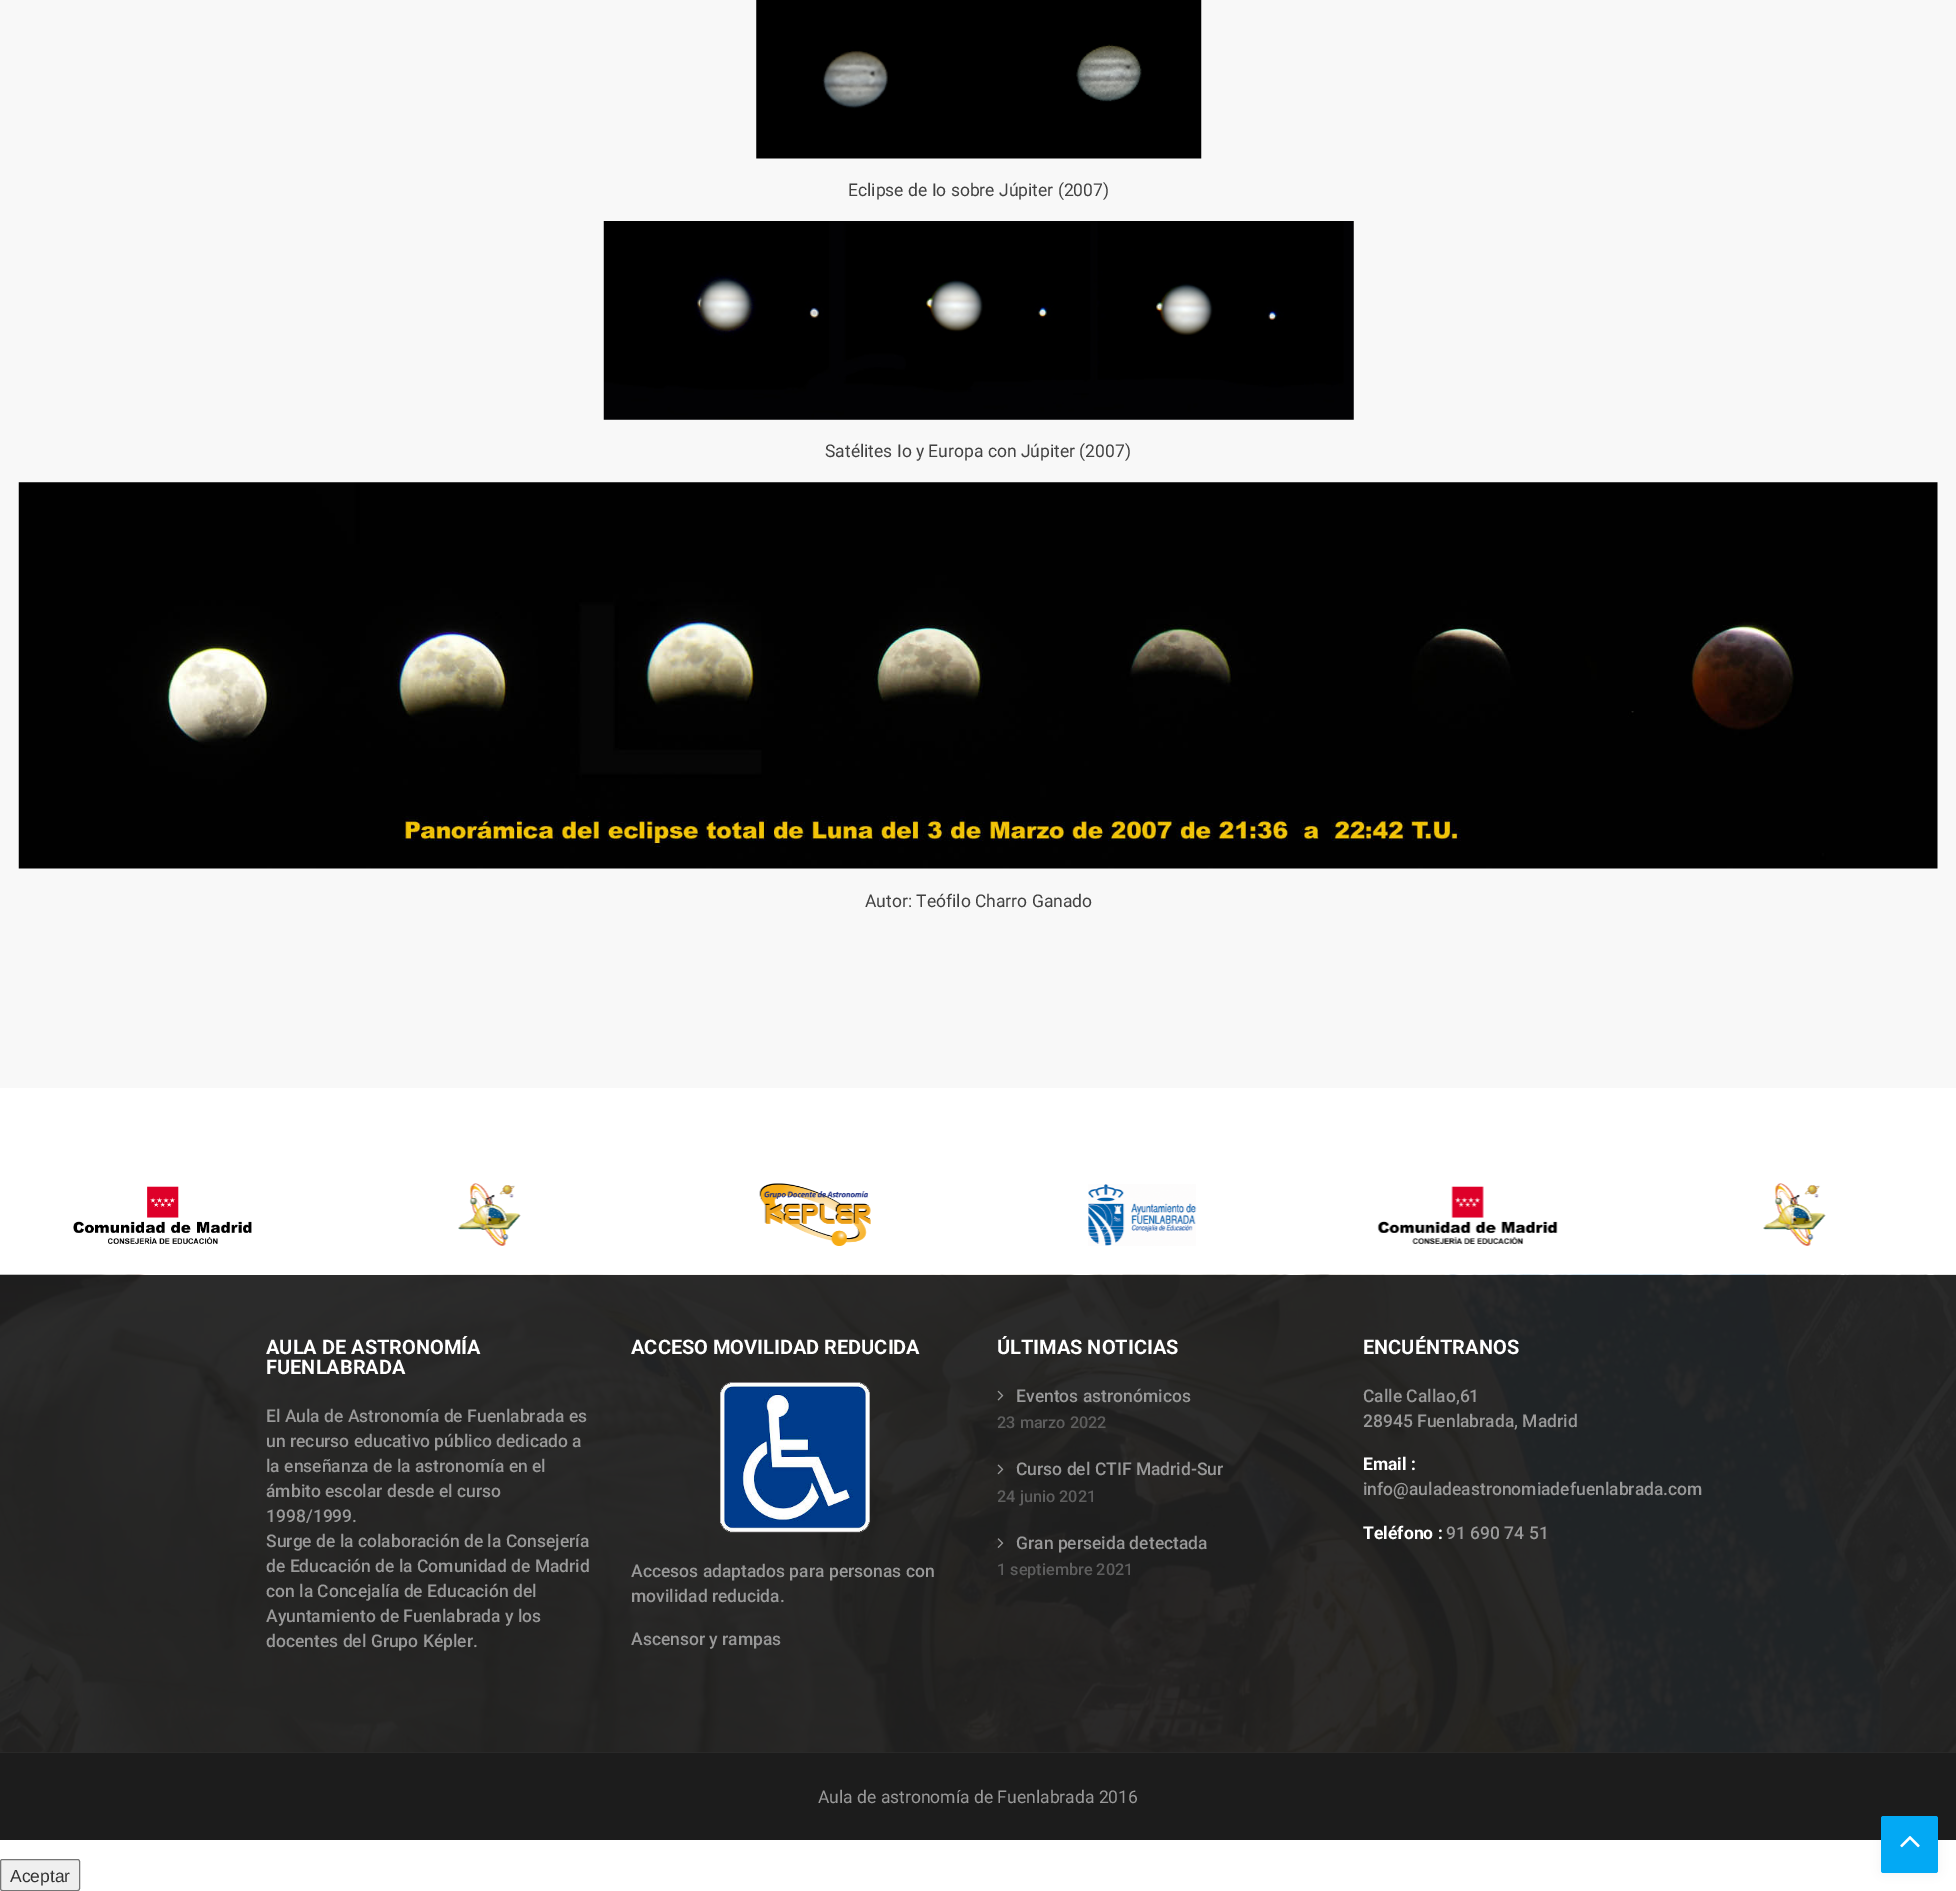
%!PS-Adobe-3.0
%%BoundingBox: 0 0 1956 1891
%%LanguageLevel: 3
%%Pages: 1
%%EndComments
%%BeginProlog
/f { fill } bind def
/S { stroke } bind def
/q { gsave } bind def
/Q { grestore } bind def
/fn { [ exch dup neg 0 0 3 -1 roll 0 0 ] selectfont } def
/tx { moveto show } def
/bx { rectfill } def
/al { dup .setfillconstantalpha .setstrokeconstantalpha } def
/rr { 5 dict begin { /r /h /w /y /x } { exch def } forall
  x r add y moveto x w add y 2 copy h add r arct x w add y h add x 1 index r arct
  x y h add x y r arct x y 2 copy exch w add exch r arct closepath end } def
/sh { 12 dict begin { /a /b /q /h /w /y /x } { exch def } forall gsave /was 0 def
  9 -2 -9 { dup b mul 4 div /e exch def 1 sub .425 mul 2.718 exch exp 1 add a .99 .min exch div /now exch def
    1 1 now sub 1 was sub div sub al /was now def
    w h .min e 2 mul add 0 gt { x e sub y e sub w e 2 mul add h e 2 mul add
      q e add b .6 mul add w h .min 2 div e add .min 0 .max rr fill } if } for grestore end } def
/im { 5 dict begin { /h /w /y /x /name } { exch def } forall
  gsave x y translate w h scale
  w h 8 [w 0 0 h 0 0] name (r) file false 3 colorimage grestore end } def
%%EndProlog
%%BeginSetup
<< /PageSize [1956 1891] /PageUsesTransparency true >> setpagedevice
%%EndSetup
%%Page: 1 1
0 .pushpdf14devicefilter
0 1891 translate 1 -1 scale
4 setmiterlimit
1 setgray
0 0 1956 1891 bx
0.169 setgray
0 1752 1956 1 bx
0.973 setgray
0 0 1956 1088 bx
(image0.raw) 756 0 446 159 im
/Roboto-Regular 17.5 fn
0.259 setgray
(Eclipse de Io sobre Júpiter \(2007\)) 848 196 tx
(image1.raw) 603 221 751 199 im
(Satélites Io y Europa con Júpiter \(2007\)) 825 457 tx
(image2.raw) 18 482 1920 387 im
(Autor: Teófilo Charro Ganado) 865 907 tx
(image3.raw) 73 1186 179 58 im
(image4.raw) 458 1183 63 63 im
(image5.raw) 759 1183 112 63 im
(image6.raw) 1088 1184 109 62 im
(image7.raw) 1377 1186 181 58 im
(image4.raw) 1763 1183 63 63 im
(image8.raw) 0 1274 1956 479 im
/Roboto-Bold 20 fn
1 setgray
(AULA DE ASTRONOMÍA) 266 1354 tx
(FUENLABRADA) 266 1374 tx
/Roboto-Medium 17.5 fn
0.6 setgray
(El Aula de Astronomía de Fuenlabrada es) 266 1422 tx
(un recurso educativo público dedicado a) 266 1447 tx
(la enseñanza de la astronomía en el) 266 1472 tx
(ámbito escolar desde el curso) 266 1497 tx
(1998/1999.) 266 1522 tx
(Surge de la colaboración de la Consejería) 266 1547 tx
(de Educación de la Comunidad de Madrid) 266 1572 tx
(con la Concejalía de Educación del) 266 1597 tx
(Ayuntamiento de Fuenlabrada y los) 266 1622 tx
(docentes del Grupo Képler.) 266 1647 tx
/Roboto-Bold 20 fn
1 setgray
(ACCESO MOVILIDAD REDUCIDA) 631 1354 tx
(image9.raw) 720 1382 150 151 im
/Roboto-Medium 17.5 fn
0.6 setgray
(Accesos adaptados para personas con) 631 1577 tx
(movilidad reducida.) 631 1602 tx
(Ascensor y rampas) 631 1645 tx
/Roboto-Bold 20 fn
1 setgray
(ÚLTIMAS NOTICIAS) 997 1354 tx
(image10.raw) 997 1390 7 11 im
/Roboto-Medium 17.5 fn
0.6 setgray
(Eventos astronómicos) 1016 1402 tx
/Roboto-Medium 16.25 fn
0.369 setgray
(23 marzo 2022) 997 1428 tx
(image11.raw) 997 1464 7 11 im
/Roboto-Medium 17.5 fn
0.6 setgray
(Curso del CTIF Madrid-Sur) 1016 1475 tx
/Roboto-Medium 16.25 fn
0.369 setgray
(24 junio 2021) 997 1502 tx
(image12.raw) 997 1538 7 10 im
/Roboto-Medium 17.5 fn
0.6 setgray
(Gran perseida detectada) 1016 1549 tx
/Roboto-Medium 16.25 fn
0.369 setgray
(1 septiembre 2021) 997 1575 tx
/Roboto-Bold 20 fn
1 setgray
(ENCUÉNTRANOS) 1363 1354 tx
/Roboto-Medium 17.5 fn
0.6 setgray
(Calle Callao,61) 1363 1402 tx
(28945 Fuenlabrada, Madrid) 1363 1427 tx
/Roboto-Bold 17.5 fn
1 setgray
(Email :) 1363 1470 tx
/Roboto-Medium 17.5 fn
0.6 setgray
(info@auladeastronomiadefuenlabrada.com) 1363 1495 tx
/Roboto-Bold 17.5 fn
1 setgray
(Teléfono :) 1363 1539 tx
/Roboto-Medium 17.5 fn
0.6 setgray
(91 690 74 51) 1446 1539 tx
0.11 setgray
0 1753 1956 87 bx
/Roboto-Regular 17.5 fn
0.6 setgray
(Aula de astronomía de Fuenlabrada 2016) 818 1803 tx
0.937 setgray
0.5 1859.5 79 31 2 rr q f Q
0.463 setgray
S
/LiberationSans-Regular 17.5 fn
0.2 setgray
(Aceptar) 10 1882 tx
0 setgray
1881 1816 57 57 2.5 6 0.05 sh
0.012 0.663 0.957 setrgbcolor
1881 1816 57 57 2.5 rr f
(image13.raw) 1900 1836 20 12 im
.poppdf14devicefilter showpage
%%EOF
